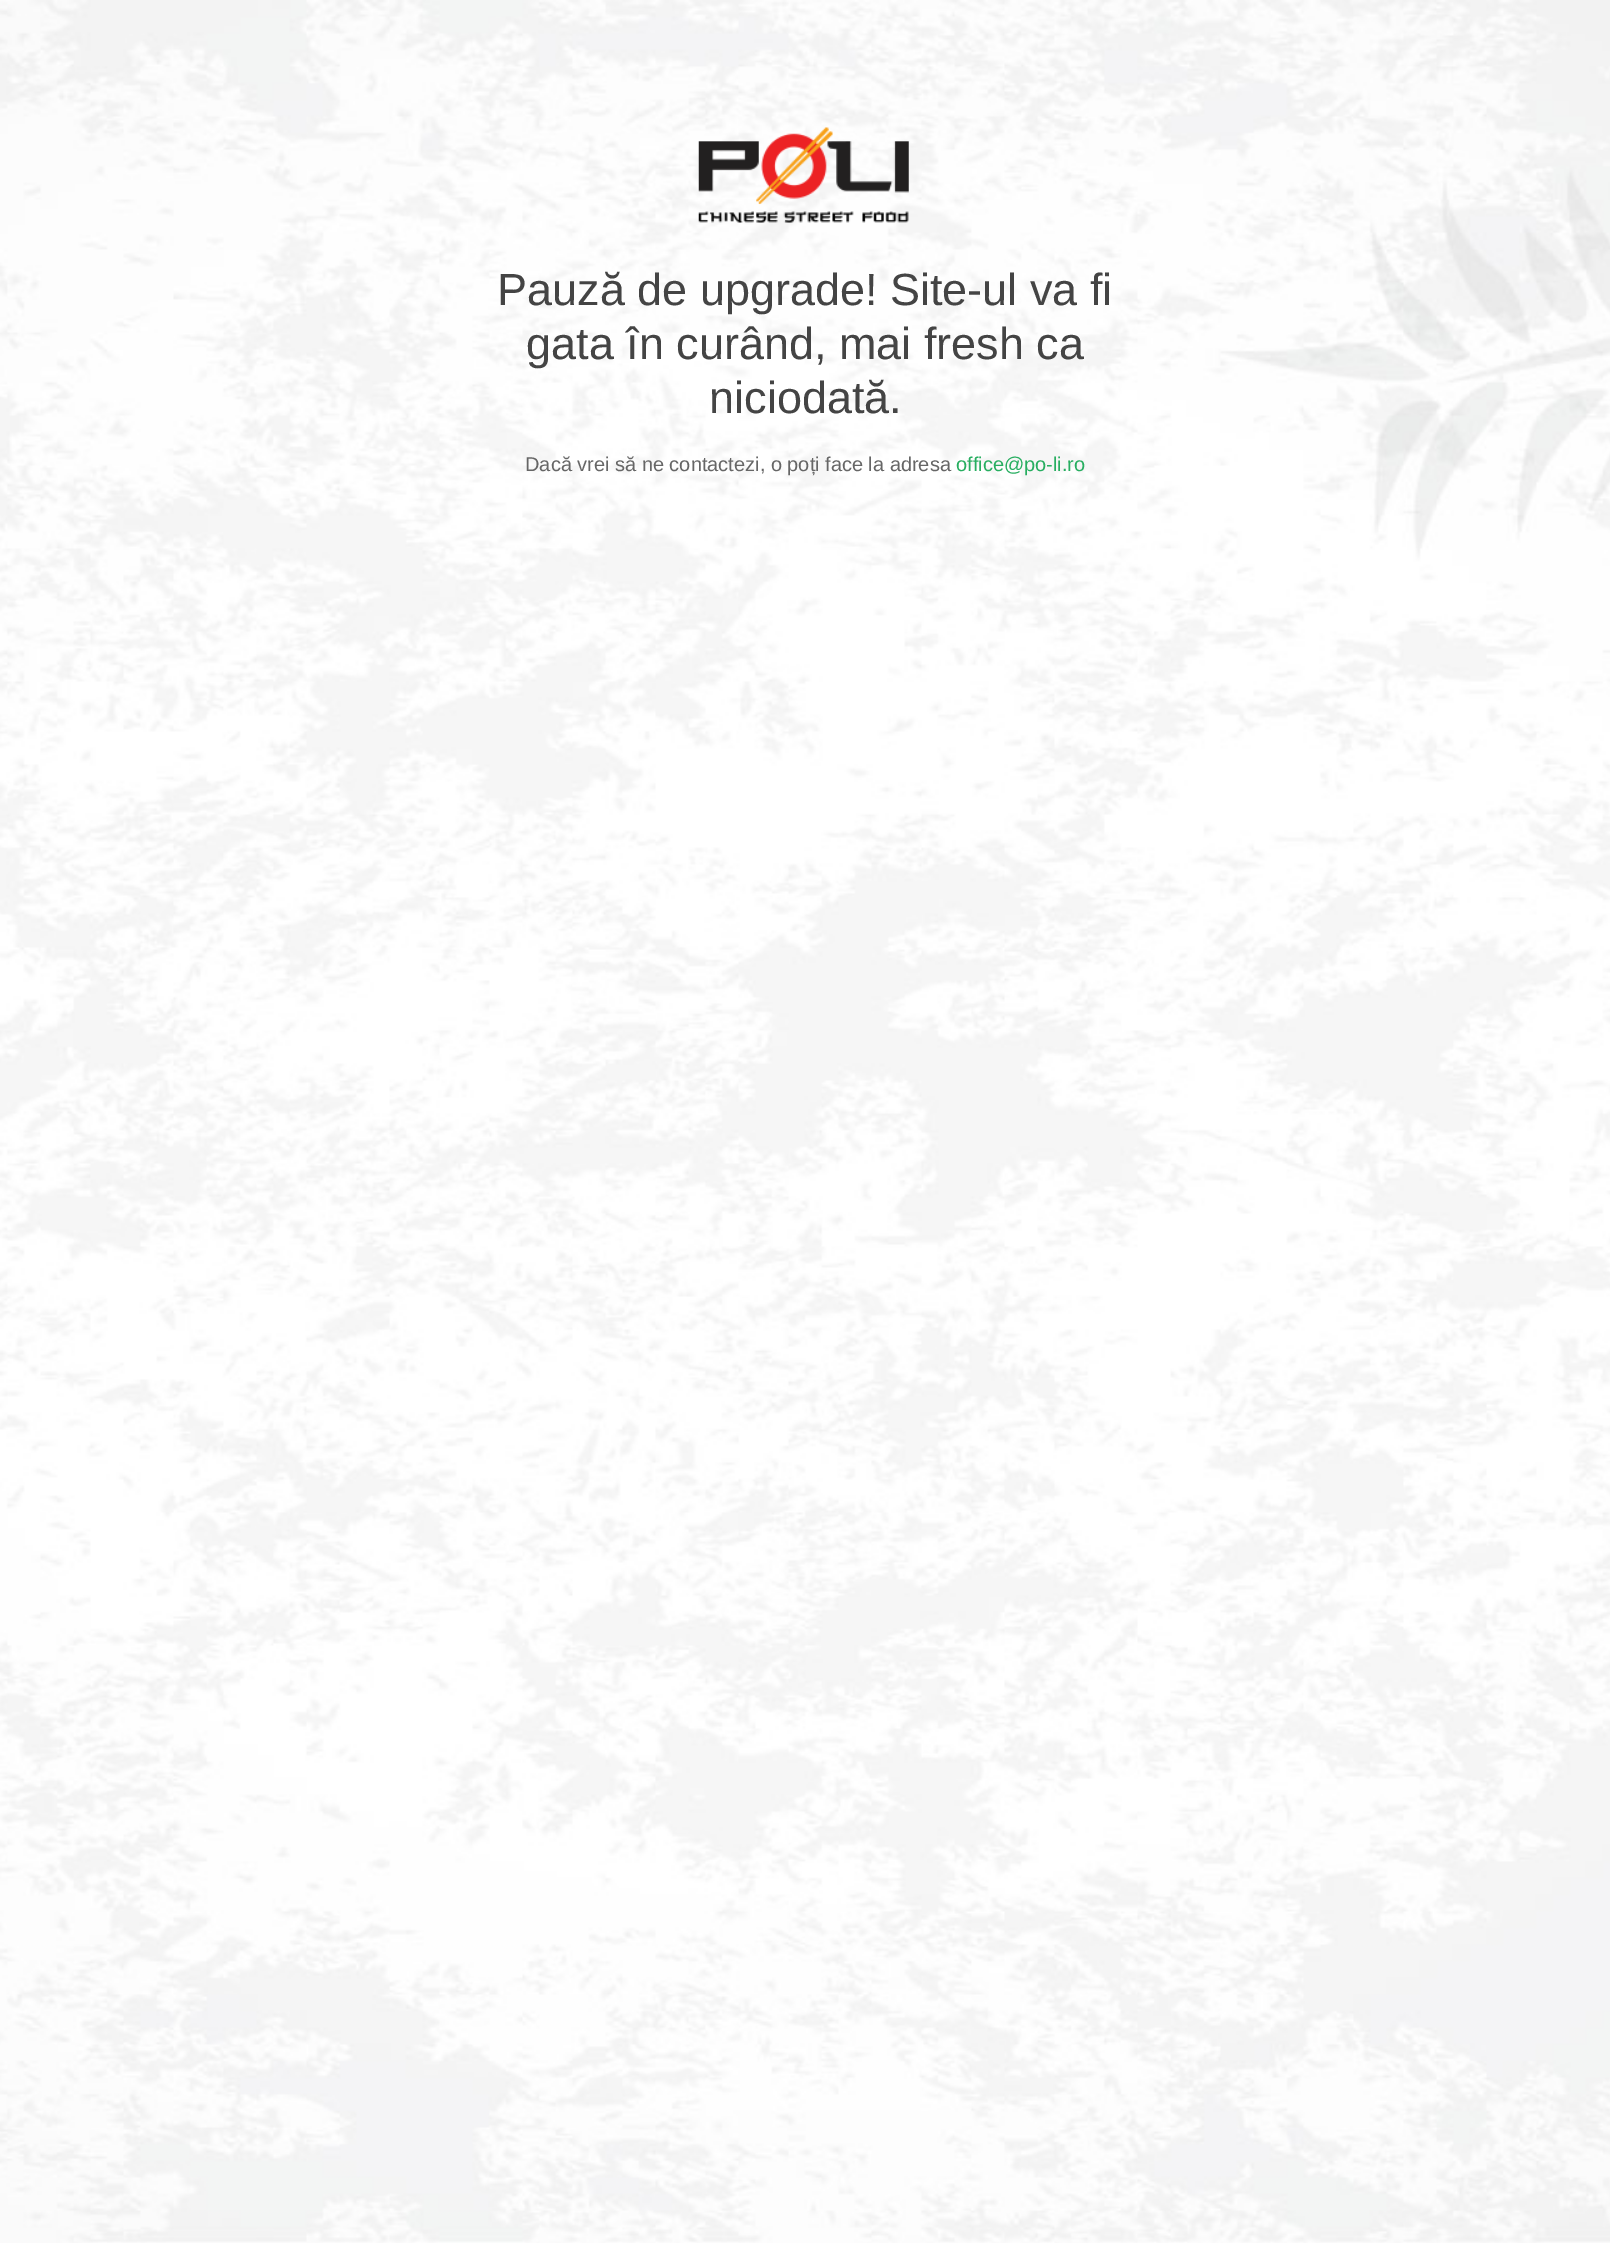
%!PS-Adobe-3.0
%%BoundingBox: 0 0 1610 2243
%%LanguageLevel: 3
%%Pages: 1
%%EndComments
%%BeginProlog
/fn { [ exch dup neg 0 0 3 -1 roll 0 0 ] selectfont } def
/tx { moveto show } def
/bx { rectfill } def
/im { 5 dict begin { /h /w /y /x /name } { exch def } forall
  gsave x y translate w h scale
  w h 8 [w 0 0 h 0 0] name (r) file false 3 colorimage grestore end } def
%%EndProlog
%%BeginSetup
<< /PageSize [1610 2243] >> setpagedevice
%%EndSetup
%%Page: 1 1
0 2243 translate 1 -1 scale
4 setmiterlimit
1 setgray
0 0 1610 2243 bx
(image0.raw) 0 0 1610 2243 im
(image1.raw) 698 127 211 96 im
/LiberationSans-Regular 45 fn
0.267 setgray
(Pauză de upgrade! Site-ul va fi) 497 305 tx
(gata în curând, mai fresh ca) 526 359 tx
(niciodată.) 709 413 tx
/LiberationSans-Regular 20 fn
0.4 setgray
(Dacă vrei să ne contactezi, o poți face la adresa) 525 471 tx
0.153 0.682 0.376 setrgbcolor
(office@po-li.ro) 956 471 tx
showpage
%%EOF
